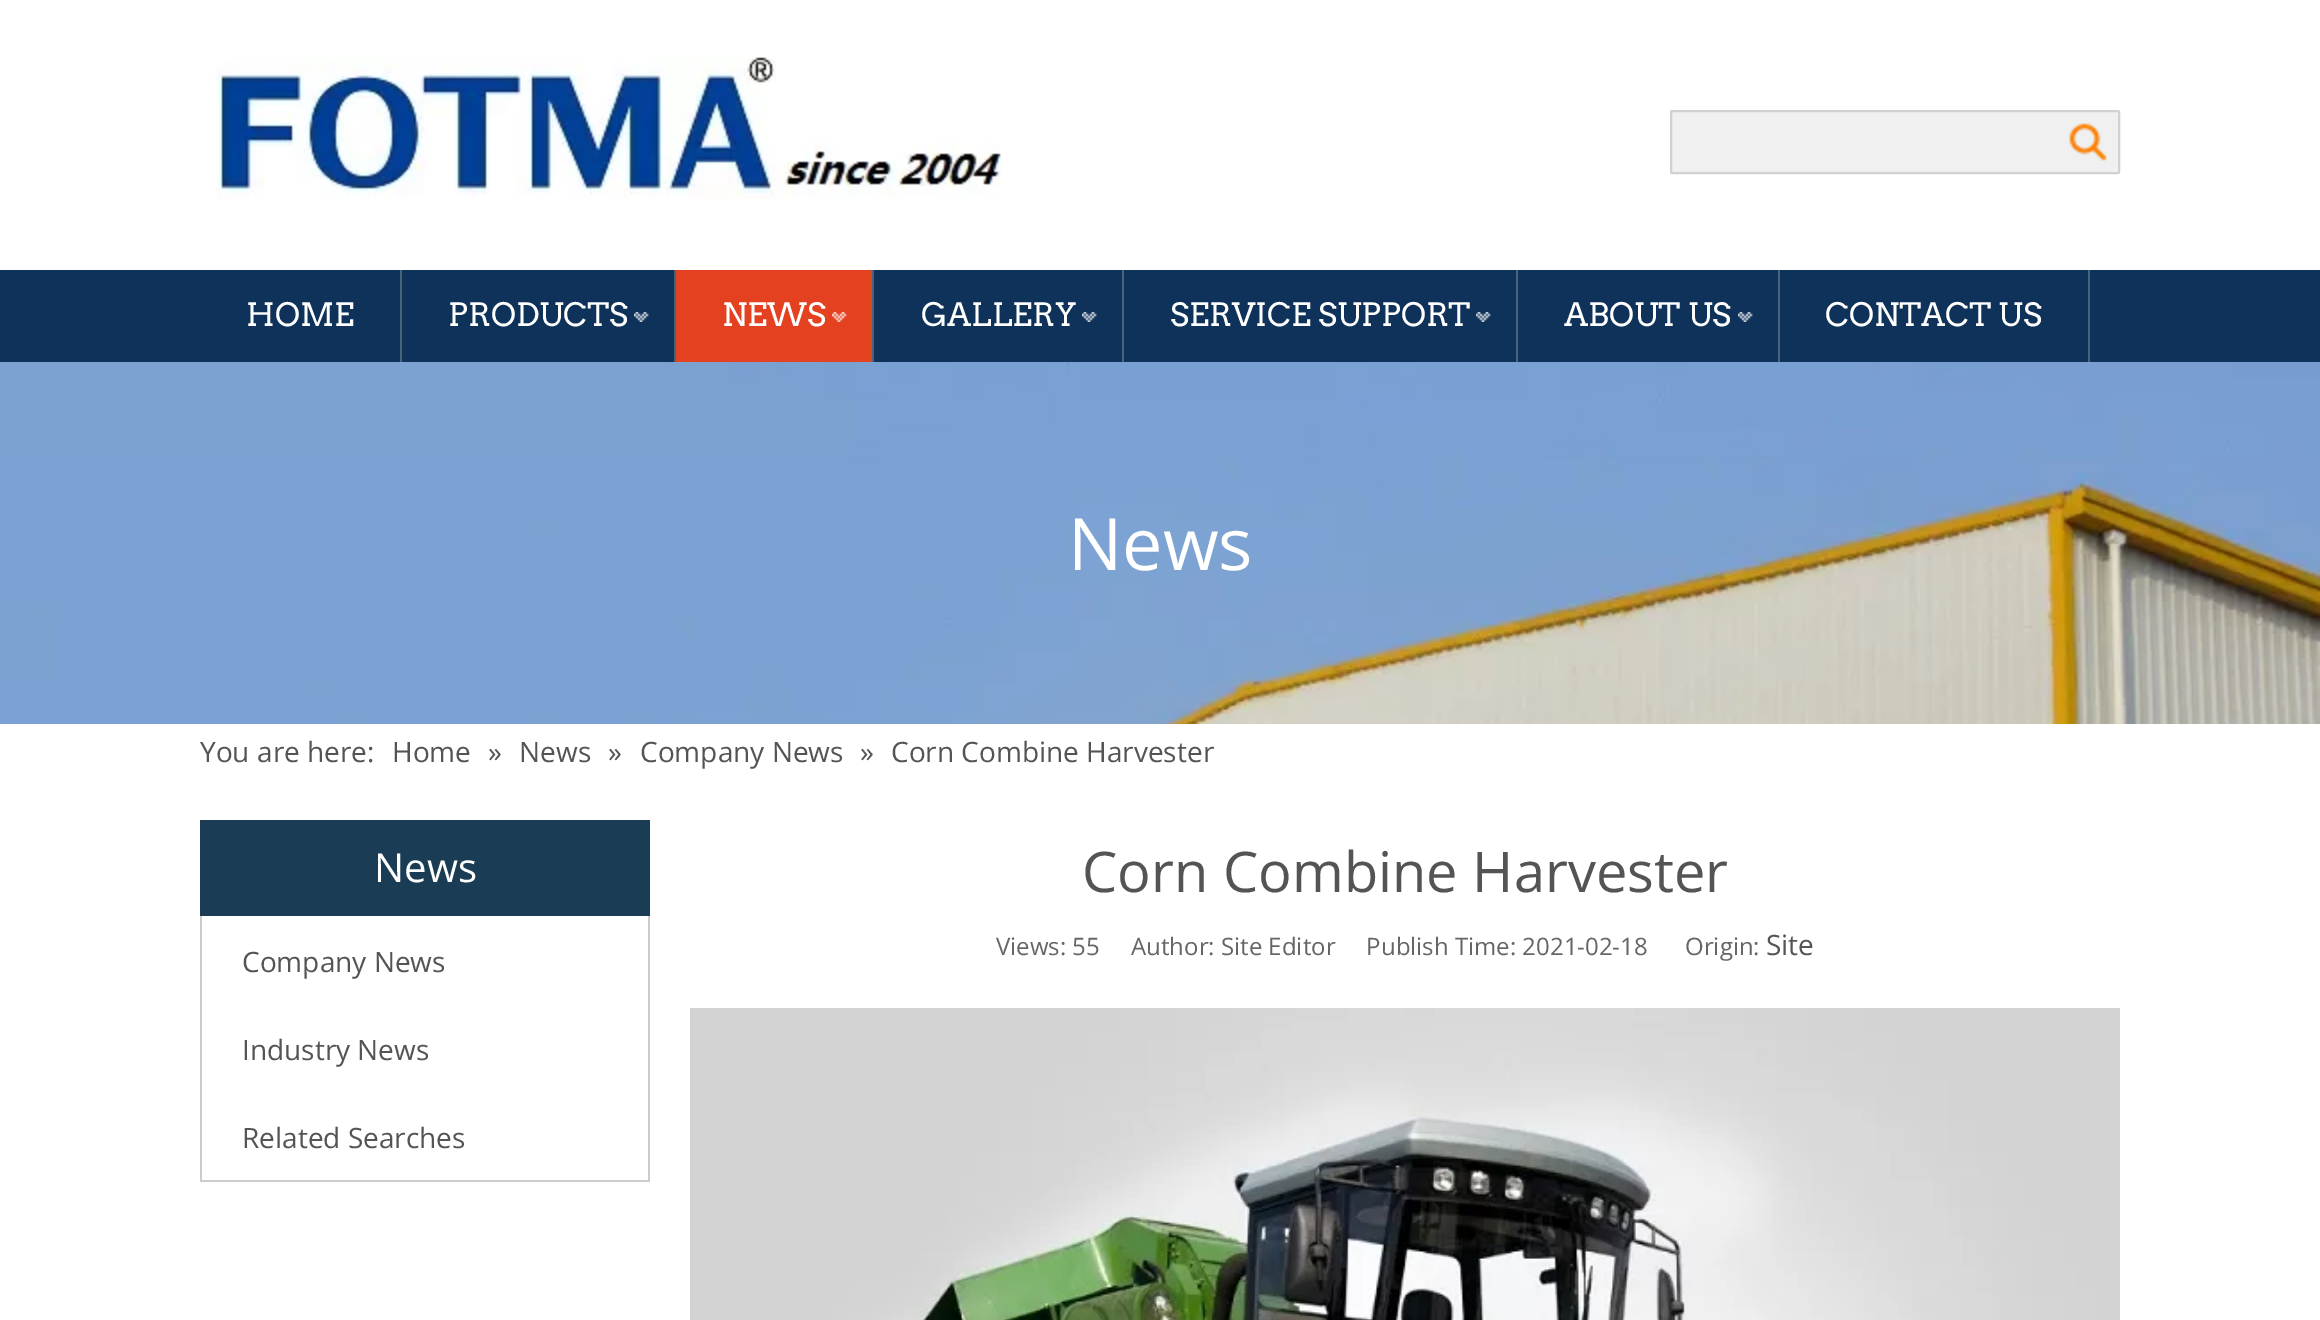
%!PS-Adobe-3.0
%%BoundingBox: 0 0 2320 1320
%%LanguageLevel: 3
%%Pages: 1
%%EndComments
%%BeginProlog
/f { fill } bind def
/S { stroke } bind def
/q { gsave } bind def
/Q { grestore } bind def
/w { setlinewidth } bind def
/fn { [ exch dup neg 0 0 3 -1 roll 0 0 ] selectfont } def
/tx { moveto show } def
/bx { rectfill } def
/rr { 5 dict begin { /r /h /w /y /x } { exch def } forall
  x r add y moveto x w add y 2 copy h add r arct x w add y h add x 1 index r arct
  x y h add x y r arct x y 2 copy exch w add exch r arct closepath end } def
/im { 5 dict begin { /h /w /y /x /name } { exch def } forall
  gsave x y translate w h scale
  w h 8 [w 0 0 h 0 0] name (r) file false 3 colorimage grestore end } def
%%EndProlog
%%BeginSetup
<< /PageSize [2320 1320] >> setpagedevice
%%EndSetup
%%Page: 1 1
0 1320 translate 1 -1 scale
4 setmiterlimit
1 setgray
0 0 2320 1320 bx
(image0.raw) 215 57 787 142 im
0.941 setgray
1671 111 448 62 1 rr q f Q
0.82 setgray
2 w
S
(image1.raw) 2069 123 38 38 im
0.055 0.196 0.349 setrgbcolor
0 270 2320 92 bx
0.282 0.392 0.467 setrgbcolor
400 270 2 92 bx
/Arvo-Regular 32 fn
1 setgray
(HOME) 246 326 tx
0.282 0.392 0.467 setrgbcolor
674 270 2 92 bx
(image2.raw) 634 312 15 10 im
1 setgray
(PRODUCTS) 448 326 tx
0.282 0.392 0.467 setrgbcolor
872 270 2 92 bx
0.89 0.255 0.125 setrgbcolor
676 270 196 92 bx
(image3.raw) 832 312 15 10 im
1 setgray
(NEWS) 722 326 tx
0.282 0.392 0.467 setrgbcolor
1122 270 2 92 bx
(image2.raw) 1082 312 15 10 im
1 setgray
(GALLERY) 921 326 tx
0.282 0.392 0.467 setrgbcolor
1516 270 2 92 bx
(image2.raw) 1476 312 15 10 im
1 setgray
(SERVICE SUPPORT) 1170 326 tx
0.282 0.392 0.467 setrgbcolor
1778 270 2 92 bx
(image2.raw) 1738 312 15 10 im
1 setgray
(ABOUT US) 1564 326 tx
0.282 0.392 0.467 setrgbcolor
2088 270 2 92 bx
1 setgray
(CONTACT US) 1825 326 tx
(image4.raw) 0 362 2320 362 im
/OpenSans-Regular 72 fn
(News) 1068 570 tx
/OpenSans-Regular 28 fn
0.329 setgray
(You are here:) 200 762 tx
(Home) 392 762 tx
(») 488 762 tx
(News) 519 762 tx
(») 608 762 tx
(Company News) 640 762 tx
(») 860 762 tx
(Corn Combine Harvester) 891 762 tx
0.102 0.239 0.333 setrgbcolor
200 820 450 96 bx
/OpenSans-Regular 40 fn
1 setgray
(News) 374 882 tx
0.8 setgray
648 916 2 266 bx
200 1180 450 2 bx
200 916 2 266 bx
/OpenSans-Regular 28 fn
0.329 setgray
(Company News) 242 972 tx
(Industry News) 242 1060 tx
(Related Searches) 242 1148 tx
/OpenSans-Regular 56 fn
(Corn Combine Harvester) 1082 892 tx
/OpenSans-Regular 24 fn
0.4 setgray
(Views: 55) 996 955 tx
(Author: Site Editor     Publish Time: 2021-02-18      Origin:) 1131 955 tx
/OpenSans-Regular 28 fn
0.329 setgray
(Site) 1766 955 tx
(image5.raw) 690 1008 1430 312 im
showpage
%%EOF
